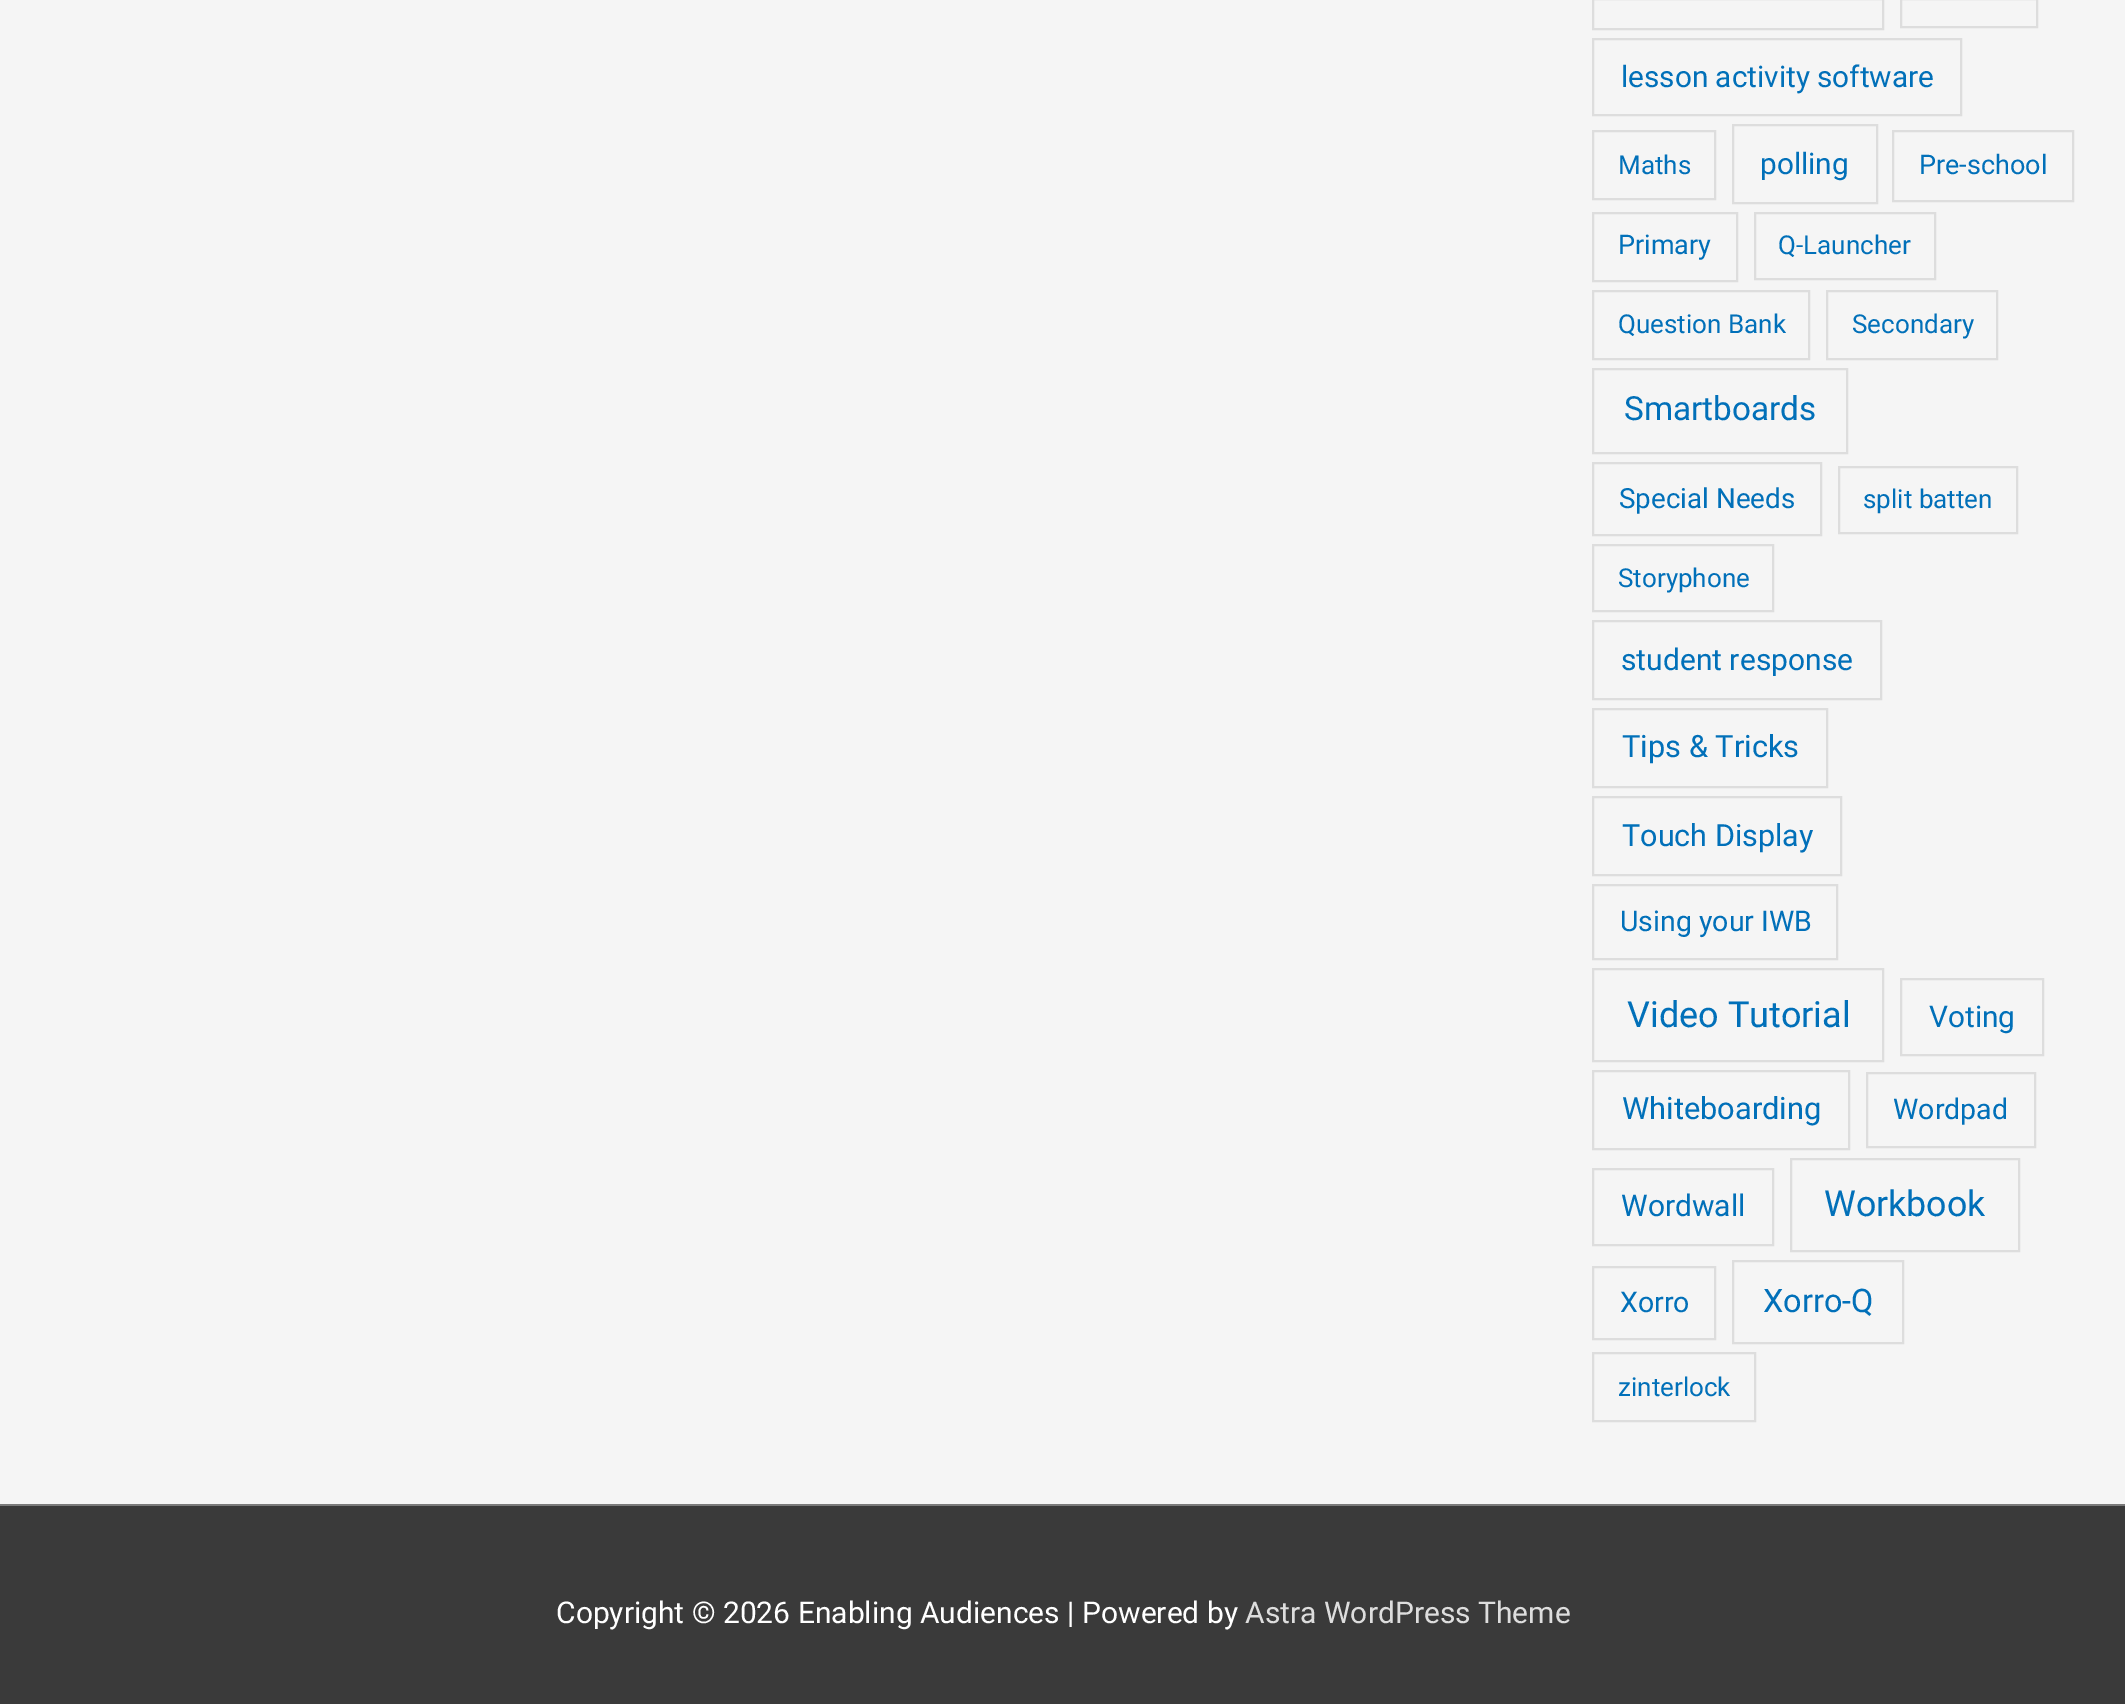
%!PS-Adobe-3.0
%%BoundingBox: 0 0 2125 1704
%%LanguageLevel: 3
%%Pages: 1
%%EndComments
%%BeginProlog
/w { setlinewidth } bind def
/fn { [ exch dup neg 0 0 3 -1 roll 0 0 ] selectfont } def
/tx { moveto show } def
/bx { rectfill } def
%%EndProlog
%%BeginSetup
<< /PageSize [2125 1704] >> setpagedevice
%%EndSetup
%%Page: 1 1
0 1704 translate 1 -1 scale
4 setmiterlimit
0.961 setgray
0 0 2125 1704 bx
0.867 setgray
2 w
1593 -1 290 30 rectstroke
1901 -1 136 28 rectstroke
1593 39 368 76 rectstroke
/Roboto-Regular 29.75 fn
0.004 0.439 0.725 setrgbcolor
(lesson activity software) 1621 87 tx
0.867 setgray
1593 131 122 68 rectstroke
/Roboto-Regular 26 fn
0.004 0.439 0.725 setrgbcolor
(Maths) 1618 174 tx
0.867 setgray
1733 125 144 78 rectstroke
/Roboto-Regular 29.75 fn
0.004 0.439 0.725 setrgbcolor
(polling) 1760 174 tx
0.867 setgray
1893 131 180 70 rectstroke
/Roboto-Regular 27 fn
0.004 0.439 0.725 setrgbcolor
(Pre-school) 1919 174 tx
0.867 setgray
1593 213 144 68 rectstroke
0.004 0.439 0.725 setrgbcolor
(Primary) 1618 254 tx
0.867 setgray
1755 213 180 66 rectstroke
/Roboto-Regular 26 fn
0.004 0.439 0.725 setrgbcolor
(Q-Launcher) 1778 254 tx
0.867 setgray
1593 291 216 68 rectstroke
0.004 0.439 0.725 setrgbcolor
(Question Bank) 1618 333 tx
0.867 setgray
1827 291 170 68 rectstroke
0.004 0.439 0.725 setrgbcolor
(Secondary) 1852 333 tx
0.867 setgray
1593 369 254 84 rectstroke
/Roboto-Regular 33.25 fn
0.004 0.439 0.725 setrgbcolor
(Smartboards) 1624 420 tx
0.867 setgray
1593 463 228 72 rectstroke
/Roboto-Regular 27.75 fn
0.004 0.439 0.725 setrgbcolor
(Special Needs) 1619 508 tx
0.867 setgray
1839 467 178 66 rectstroke
/Roboto-Regular 26 fn
0.004 0.439 0.725 setrgbcolor
(split batten) 1863 508 tx
0.867 setgray
1593 545 180 66 rectstroke
0.004 0.439 0.725 setrgbcolor
(Storyphone) 1618 587 tx
0.867 setgray
1593 621 288 78 rectstroke
/Roboto-Regular 30 fn
0.004 0.439 0.725 setrgbcolor
(student response) 1621 670 tx
0.867 setgray
1593 709 234 78 rectstroke
/Roboto-Regular 30.75 fn
0.004 0.439 0.725 setrgbcolor
(Tips & Tricks) 1622 757 tx
0.867 setgray
1593 797 248 78 rectstroke
/Roboto-Regular 30.5 fn
0.004 0.439 0.725 setrgbcolor
(Touch Display) 1622 846 tx
0.867 setgray
1593 885 244 74 rectstroke
/Roboto-Regular 28.5 fn
0.004 0.439 0.725 setrgbcolor
(Using your IWB) 1620 931 tx
0.867 setgray
1593 969 290 92 rectstroke
/Roboto-Regular 36 fn
0.004 0.439 0.725 setrgbcolor
(Video Tutorial) 1627 1027 tx
0.867 setgray
1901 979 142 76 rectstroke
/Roboto-Regular 29.75 fn
0.004 0.439 0.725 setrgbcolor
(Voting) 1929 1027 tx
0.867 setgray
1593 1071 256 78 rectstroke
/Roboto-Regular 30.75 fn
0.004 0.439 0.725 setrgbcolor
(Whiteboarding) 1622 1119 tx
0.867 setgray
1867 1073 168 74 rectstroke
/Roboto-Regular 28.5 fn
0.004 0.439 0.725 setrgbcolor
(Wordpad) 1893 1119 tx
0.867 setgray
1593 1169 180 76 rectstroke
/Roboto-Regular 30 fn
0.004 0.439 0.725 setrgbcolor
(Wordwall) 1621 1216 tx
0.867 setgray
1791 1159 228 92 rectstroke
/Roboto-Regular 35.75 fn
0.004 0.439 0.725 setrgbcolor
(Workbook) 1824 1216 tx
0.867 setgray
1593 1267 122 72 rectstroke
/Roboto-Regular 28.5 fn
0.004 0.439 0.725 setrgbcolor
(Xorro) 1620 1312 tx
0.867 setgray
1733 1261 170 82 rectstroke
/Roboto-Regular 32.5 fn
0.004 0.439 0.725 setrgbcolor
(Xorro-Q) 1763 1312 tx
0.867 setgray
1593 1353 162 68 rectstroke
/Roboto-Regular 26 fn
0.004 0.439 0.725 setrgbcolor
(zinterlock) 1618 1396 tx
0.478 setgray
0 1504 2125 2 bx
0.227 setgray
0 1506 2125 198 bx
/Roboto-Regular 30 fn
1 setgray
(Copyright © 2026 Enabling Audiences | Powered by) 556 1623 tx
0.867 setgray
(Astra WordPress Theme) 1245 1623 tx
showpage
%%EOF
